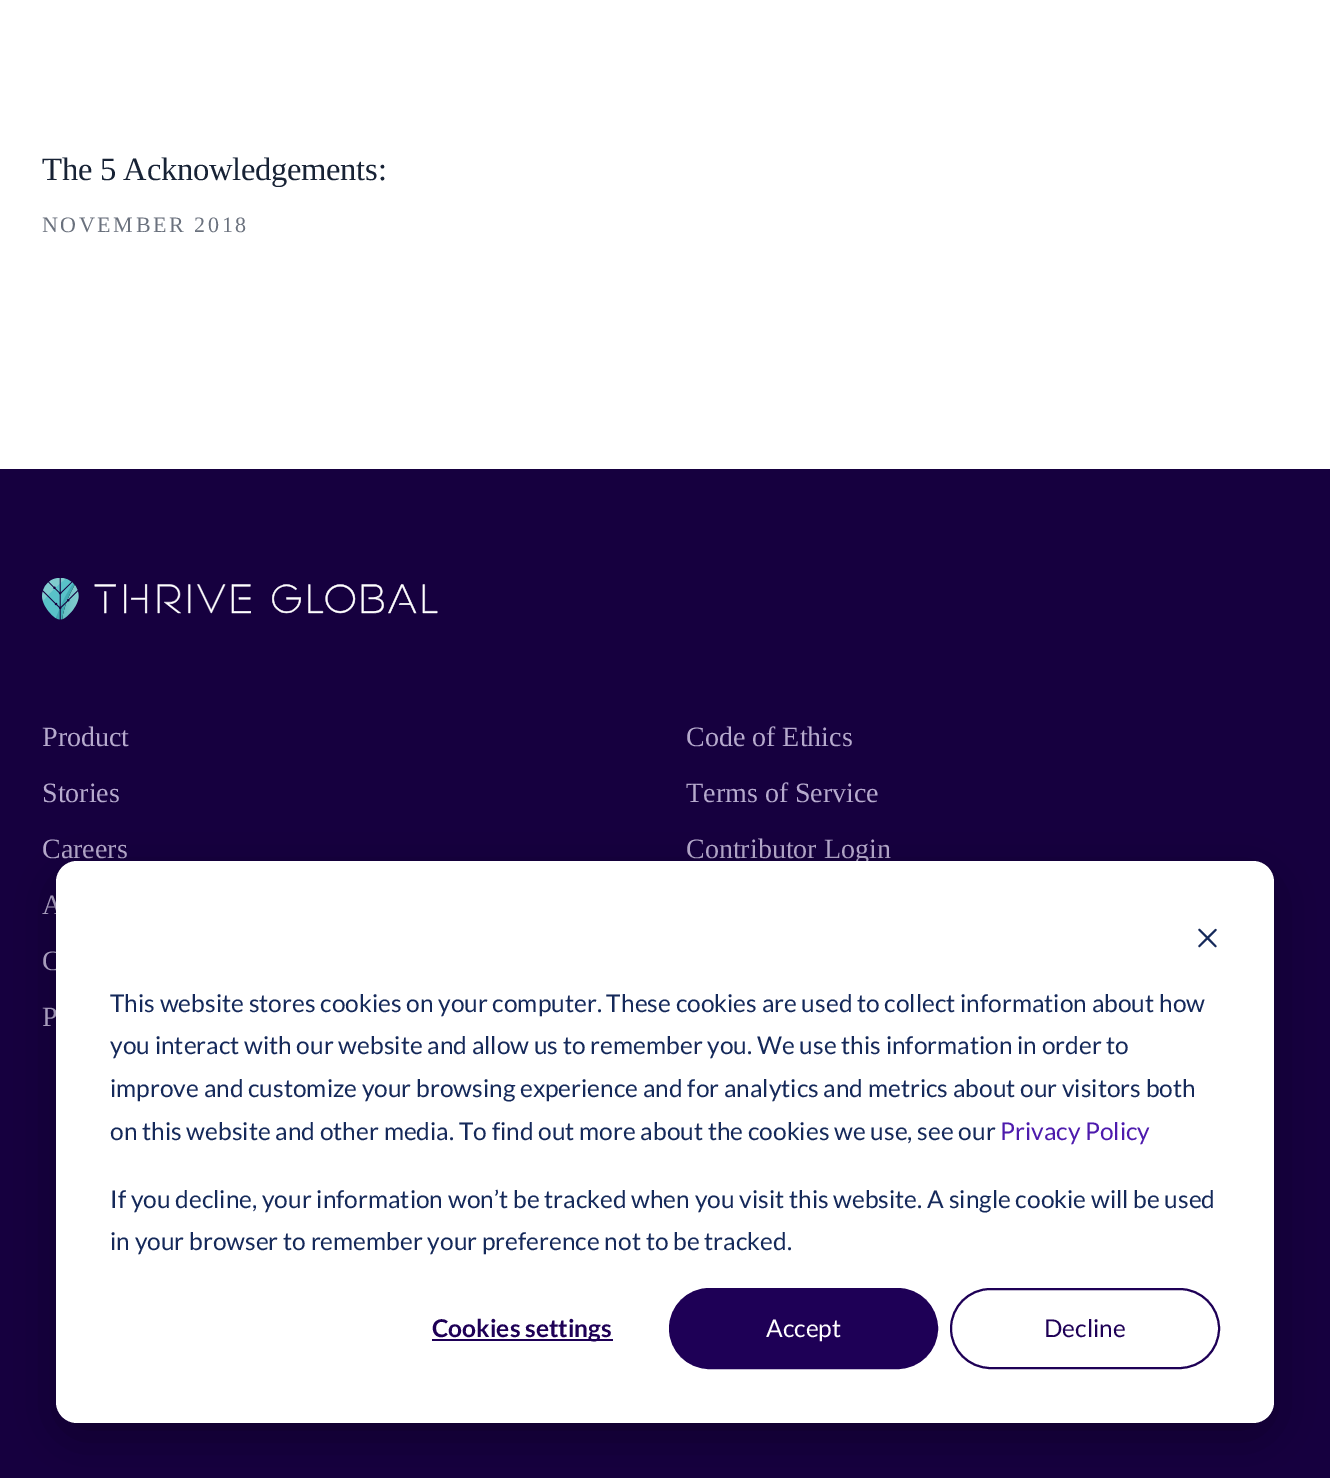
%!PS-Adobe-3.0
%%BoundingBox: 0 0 1330 1478
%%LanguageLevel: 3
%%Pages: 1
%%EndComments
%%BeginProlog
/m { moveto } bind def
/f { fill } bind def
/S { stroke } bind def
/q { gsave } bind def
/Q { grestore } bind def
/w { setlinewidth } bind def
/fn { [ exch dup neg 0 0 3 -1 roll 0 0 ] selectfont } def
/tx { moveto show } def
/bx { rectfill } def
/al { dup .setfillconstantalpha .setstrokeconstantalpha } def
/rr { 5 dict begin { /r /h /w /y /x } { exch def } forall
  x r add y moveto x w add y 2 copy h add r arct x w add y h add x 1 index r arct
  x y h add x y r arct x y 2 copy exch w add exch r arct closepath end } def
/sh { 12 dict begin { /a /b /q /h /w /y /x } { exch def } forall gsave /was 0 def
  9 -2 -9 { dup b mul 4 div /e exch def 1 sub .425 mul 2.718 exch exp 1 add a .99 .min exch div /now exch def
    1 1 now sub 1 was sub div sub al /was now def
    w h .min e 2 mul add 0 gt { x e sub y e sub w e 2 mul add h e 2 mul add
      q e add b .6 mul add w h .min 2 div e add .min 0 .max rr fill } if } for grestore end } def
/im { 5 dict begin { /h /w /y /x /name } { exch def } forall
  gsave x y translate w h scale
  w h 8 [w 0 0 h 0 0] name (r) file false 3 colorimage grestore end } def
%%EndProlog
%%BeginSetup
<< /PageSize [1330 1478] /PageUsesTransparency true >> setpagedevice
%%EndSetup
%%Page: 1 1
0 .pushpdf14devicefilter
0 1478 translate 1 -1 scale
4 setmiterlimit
1 setgray
0 0 1330 1478 bx
/LiberationSerif-Regular 32.6 fn
0.09 0.133 0.208 setrgbcolor
42 180 m -0.3 0 (The 5 Acknowledgements:) ashow
/LiberationSerif-Regular 22 fn
0.416 0.443 0.49 setrgbcolor
42 232 m 2.6 0 (NOVEMBER 2018) ashow
0.086 0 0.247 setrgbcolor
0 469 1330 1009 bx
(image0.raw) 42 578 396 42 im
/LiberationSerif-Regular 28 fn
0.714 0.667 0.804 setrgbcolor
(Product) 42 746 tx
(Code of Ethics) 686 746 tx
(Stories) 42 802 tx
(Terms of Service) 686 802 tx
(Careers) 42 858 tx
(Contributor Login) 686 858 tx
(A) 42 914 tx
(C) 42 970 tx
(P) 42 1026 tx
0 setgray
56 875 1218 562 21 24.5 0.28 sh
1 setgray
56 861 1218 562 21 rr f
(image1.raw) 1198 928 19 20 im
/Lato-Regular 24.5 fn
0.082 0.161 0.353 setrgbcolor
(This website stores cookies on your computer. These cookies are used to collect information about how) 110 1012 tx
(you interact with our website and allow us to remember you. We use this information in order to) 110 1054 tx
(improve and customize your browsing experience and for analytics and metrics about our visitors both) 110 1097 tx
(on this website and other media. To find out more about the cookies we use, see our) 110 1140 tx
0.302 0.102 0.678 setrgbcolor
(Privacy Policy) 1000 1140 tx
0.082 0.161 0.353 setrgbcolor
(If you decline, your information won’t be tracked when you visit this website. A single cookie will be used) 110 1208 tx
(in your browser to remember your preference not to be tracked.) 110 1250 tx
0.118 0 0.337 setrgbcolor
432 1339 181 2 bx
/Lato-Bold 24.5 fn
(Cookies settings) 432 1337 tx
670 1289 267 79 39.5 rr q f Q
2 w
S
/Lato-Regular 24.5 fn
1 setgray
(Accept) 766 1337 tx
0.118 0 0.337 setrgbcolor
951 1289 268 79 39.5 rr S
(Decline) 1044 1337 tx
.poppdf14devicefilter showpage
%%EOF
